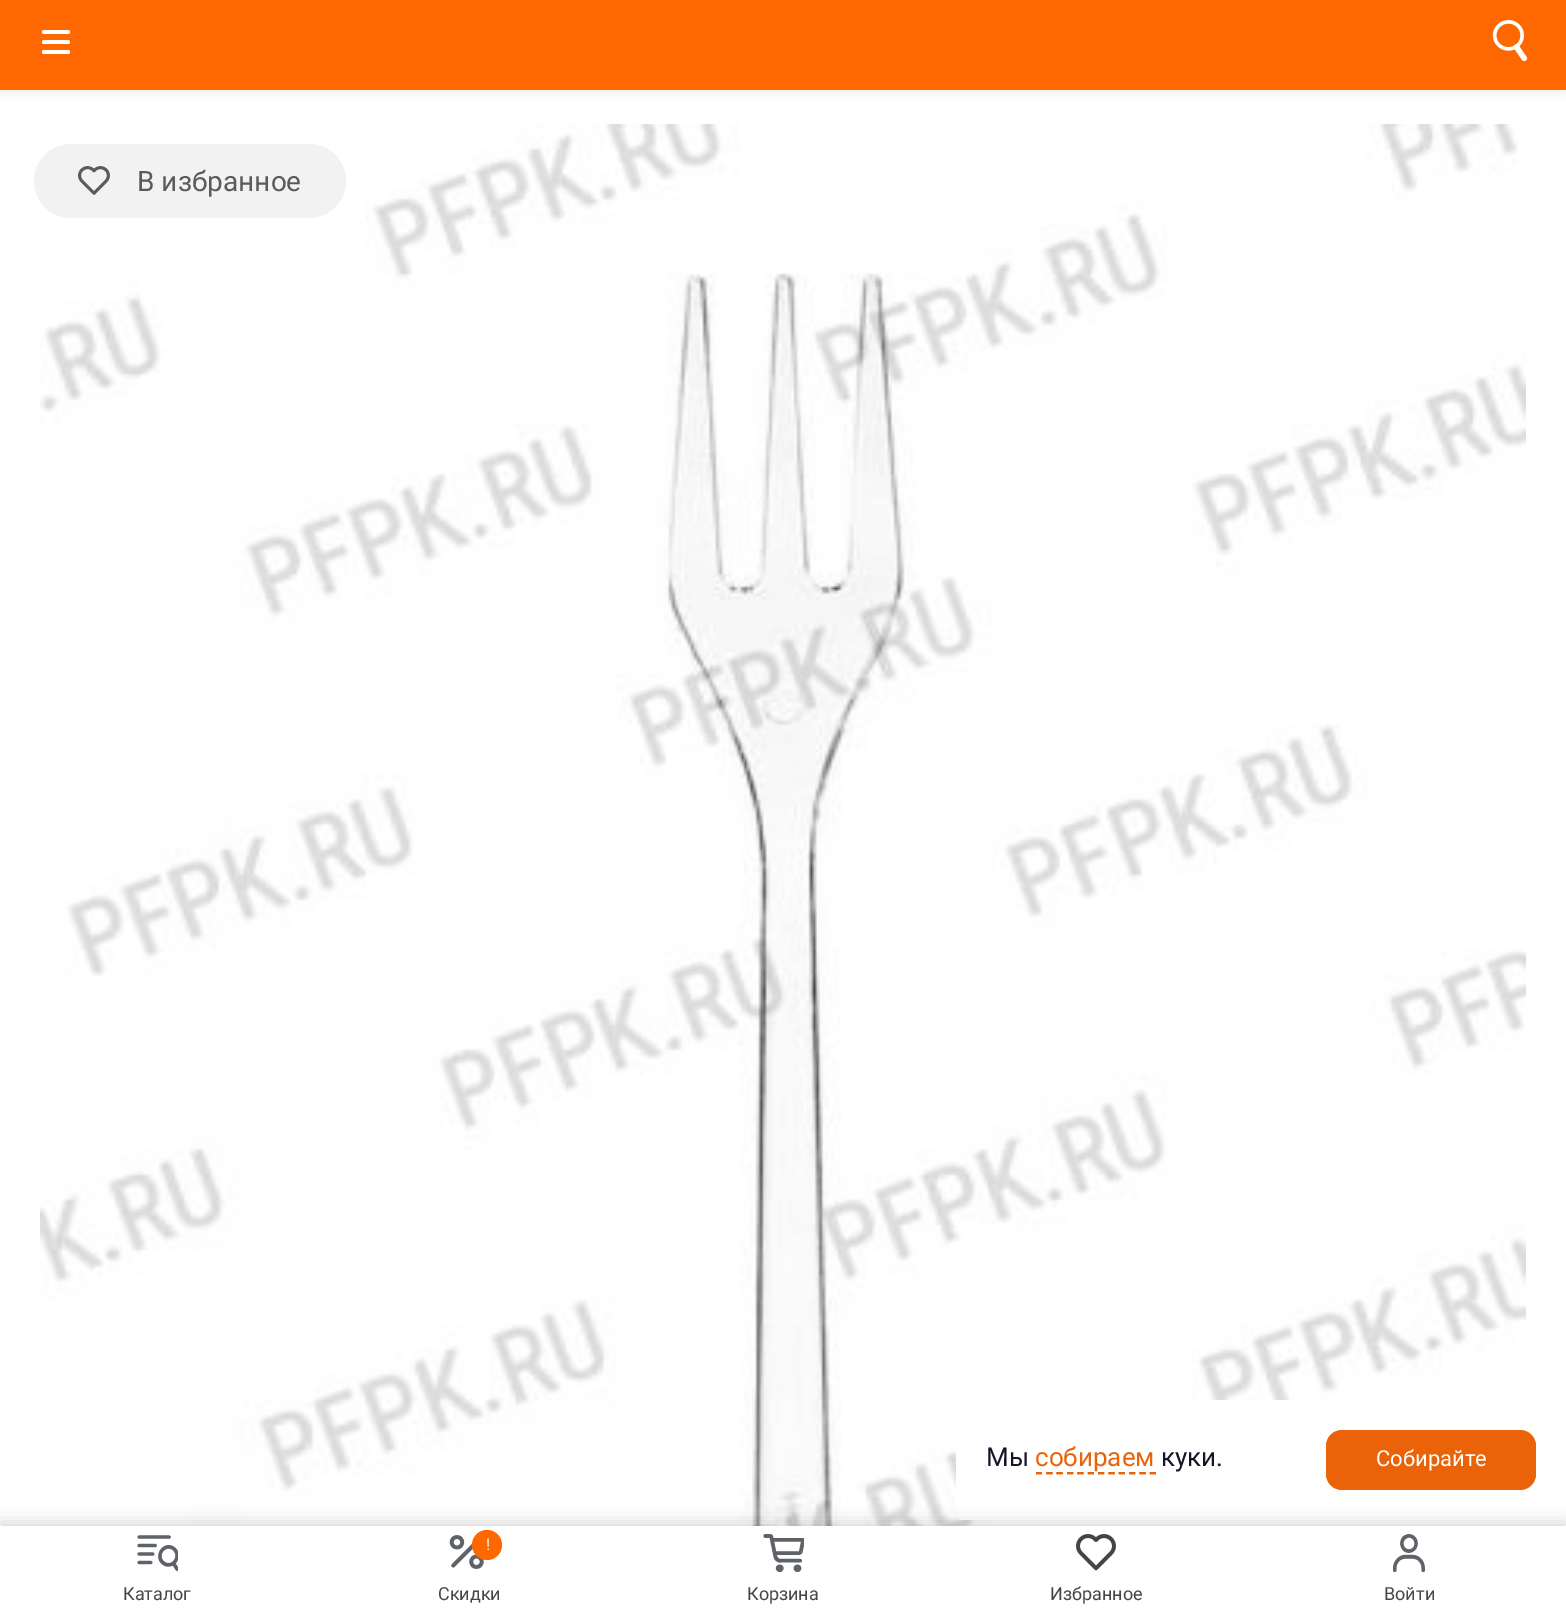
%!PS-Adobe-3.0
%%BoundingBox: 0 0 1566 1613
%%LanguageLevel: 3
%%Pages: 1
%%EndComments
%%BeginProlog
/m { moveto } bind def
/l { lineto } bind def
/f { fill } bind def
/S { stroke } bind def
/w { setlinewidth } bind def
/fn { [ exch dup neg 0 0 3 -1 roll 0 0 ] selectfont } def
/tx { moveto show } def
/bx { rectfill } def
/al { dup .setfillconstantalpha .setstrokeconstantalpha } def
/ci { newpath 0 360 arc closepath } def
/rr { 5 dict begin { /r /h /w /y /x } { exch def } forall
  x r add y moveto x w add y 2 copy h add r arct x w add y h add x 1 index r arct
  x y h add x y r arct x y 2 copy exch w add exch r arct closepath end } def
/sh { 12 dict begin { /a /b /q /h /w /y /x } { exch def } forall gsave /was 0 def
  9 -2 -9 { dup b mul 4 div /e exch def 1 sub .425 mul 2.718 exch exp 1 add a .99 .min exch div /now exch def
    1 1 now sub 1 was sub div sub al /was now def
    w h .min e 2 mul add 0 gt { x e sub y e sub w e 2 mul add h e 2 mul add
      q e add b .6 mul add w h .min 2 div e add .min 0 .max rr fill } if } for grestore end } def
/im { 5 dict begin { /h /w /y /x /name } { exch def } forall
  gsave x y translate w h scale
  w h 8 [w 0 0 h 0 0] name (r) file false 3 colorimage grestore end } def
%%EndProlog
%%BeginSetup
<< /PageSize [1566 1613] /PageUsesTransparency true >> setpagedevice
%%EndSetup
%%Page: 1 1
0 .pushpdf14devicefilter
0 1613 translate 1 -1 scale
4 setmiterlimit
1 setgray
0 0 1566 1613 bx
0 setgray
0 -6 1566 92 0 8 0.15 sh
1 0.408 0 setrgbcolor
0 0 1566 90 bx
1 setgray
42 30 28 4 2 rr f
42 40 28 4 2 rr f
42 50 28 4 2 rr f
(image0.raw) 1492 20 36 42 im
(image1.raw) 40 124 1486 1402 im
0.949 setgray
34 144 312 74 37 rr f
(image2.raw) 78 166 32 29 im
/Roboto-Regular 28 fn
0.357 setgray
(В избранное) 137 191 tx
1 setgray
956 1400 610 120 6 rr f
/Roboto-Regular 26 fn
0.082 0.082 0.157 setrgbcolor
(Мы) 986 1466 tx
0.922 0.388 0.035 setrgbcolor
(собираем) 1035 1466 tx
2 w
[6 4.36] 0 setdash
1036 1473 m 1156 1473 l S
1036 1473 m 1156 1473 l S
0.082 0.082 0.157 setrgbcolor
(куки.) 1161 1466 tx
0.922 0.388 0.035 setrgbcolor
1326 1430 210 60 16 rr f
/Roboto-Regular 22 fn
1 setgray
(Собирайте) 1376 1466 tx
0 setgray
0 1522 1566 90 0 8 0.15 sh
1 setgray
0 1526 1566 87 bx
(image3.raw) 137 1535 41 36 im
/Roboto-Regular 18 fn
0.275 setgray
(Каталог) 123 1600 tx
(image4.raw) 449 1535 35 34 im
1 0.408 0 setrgbcolor
487 1545 15 ci f
/Roboto-Regular 16 fn
1 setgray
(!) 486 1550 tx
/Roboto-Regular 18 fn
0.275 setgray
(Скидки) 438 1600 tx
(image5.raw) 763 1534 41 38 im
(Корзина) 747 1600 tx
(image6.raw) 1076 1534 40 37 im
(Избранное) 1050 1600 tx
(image7.raw) 1393 1534 32 38 im
(Войти) 1384 1600 tx
.poppdf14devicefilter showpage
%%EOF
